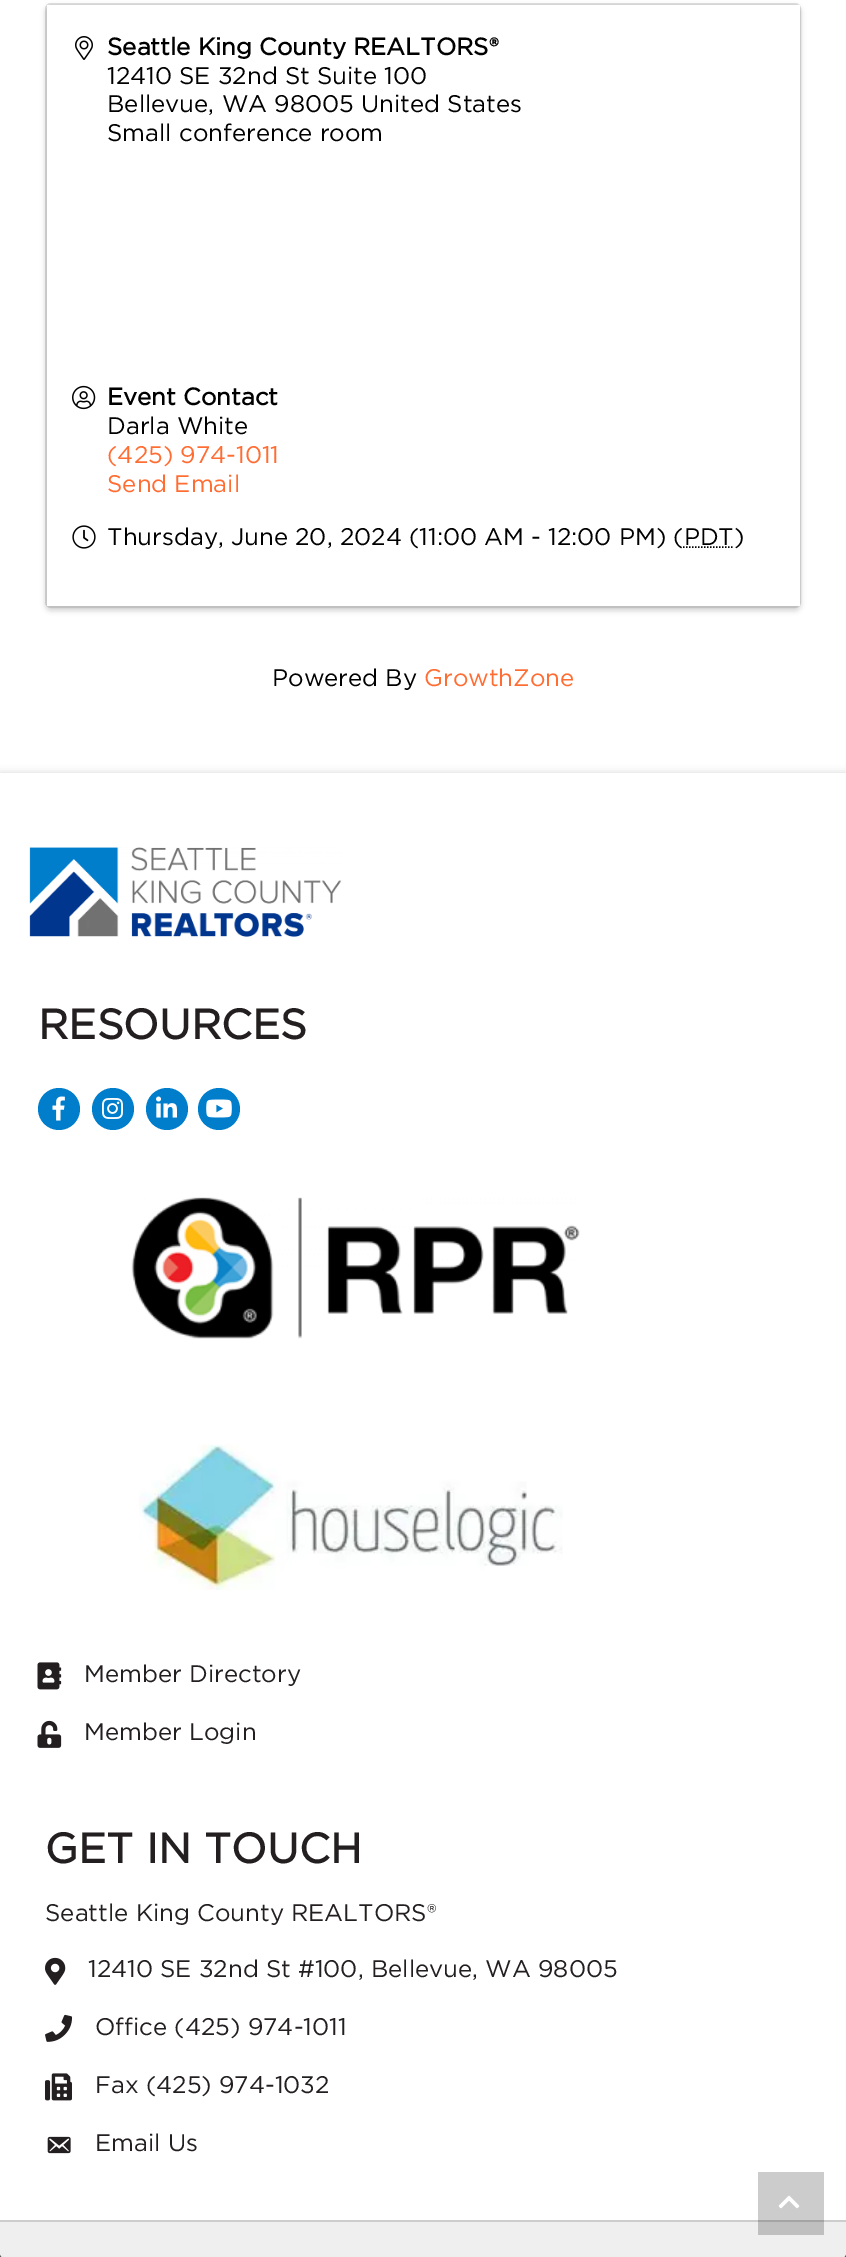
%!PS-Adobe-3.0
%%BoundingBox: 0 0 846 2257
%%LanguageLevel: 3
%%Pages: 1
%%EndComments
%%BeginProlog
/m { moveto } bind def
/l { lineto } bind def
/c { curveto } bind def
/h { closepath } bind def
/f { fill } bind def
/S { stroke } bind def
/w { setlinewidth } bind def
/fn { [ exch dup neg 0 0 3 -1 roll 0 0 ] selectfont } def
/tx { moveto show } def
/bx { rectfill } def
/al { dup .setfillconstantalpha .setstrokeconstantalpha } def
/ci { newpath 0 360 arc closepath } def
/rr { 5 dict begin { /r /h /w /y /x } { exch def } forall
  x r add y moveto x w add y 2 copy h add r arct x w add y h add x 1 index r arct
  x y h add x y r arct x y 2 copy exch w add exch r arct closepath end } def
/sh { 12 dict begin { /a /b /q /h /w /y /x } { exch def } forall gsave /was 0 def
  9 -2 -9 { dup b mul 4 div /e exch def 1 sub .425 mul 2.718 exch exp 1 add a .99 .min exch div /now exch def
    1 1 now sub 1 was sub div sub al /was now def
    w h .min e 2 mul add 0 gt { x e sub y e sub w e 2 mul add h e 2 mul add
      q e add b .6 mul add w h .min 2 div e add .min 0 .max rr fill } if } for grestore end } def
/im { 5 dict begin { /h /w /y /x /name } { exch def } forall
  gsave x y translate w h scale
  w h 8 [w 0 0 h 0 0] name (r) file false 3 colorimage grestore end } def
%%EndProlog
%%BeginSetup
<< /PageSize [846 2257] /PageUsesTransparency true >> setpagedevice
%%EndSetup
%%Page: 1 1
0 .pushpdf14devicefilter
0 2257 translate 1 -1 scale
4 setmiterlimit
1 setgray
0 0 846 2257 bx
0 setgray
45 6 756 605 6 2.5 0.15 sh
0.12 al
2 w
46 4 754 603 5 rr S
1 al
1 setgray
47 5 753 601 bx
(image0.raw) 75 36 18 24 im
/Gotham-Bold 24 fn
0 setgray
(Seattle King County REALTORS®) 107 55 tx
/Gotham-Regular 24 fn
(12410 SE 32nd St Suite 100) 107 84 tx
(Bellevue, WA 98005 United States) 107 112 tx
(Small conference room) 107 141 tx
(image1.raw) 72 385 24 25 im
/Gotham-Bold 24 fn
(Event Contact) 107 405 tx
/Gotham-Regular 24 fn
(Darla White) 107 434 tx
1 0.427 0.2 setrgbcolor
(\(425\) 974-1011) 107 463 tx
(Send Email) 107 492 tx
(image2.raw) 72 525 24 24 im
0 setgray
(Thursday, June 20, 2024 \(11:00 AM - 12:00 PM\) \(PDT\)) 107 545 tx
1.5 w
[1.5 1.5] 0 setdash
683 547 m 733.5 547 l S
0 773 846 1459 0 4 0.15 sh
0.31 0.325 0.361 setrgbcolor
0 2253 846 4 bx
0.937 setgray
0 2220 m 846 2220 l 846 2253 l 846 2256 844 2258 841 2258 c 5 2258 l 2 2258 0 2256 0 2253 c h f
0.804 setgray
0 2220 846 2 bx
0 setgray
(Powered By) 272 686 tx
1 0.427 0.2 setrgbcolor
(GrowthZone) 424 686 tx
1 setgray
0 773 846 1447 bx
(image3.raw) 29 847 313 90 im
/Gotham-Bold 42 fn
0.137 0.122 0.125 setrgbcolor
(RESOURCES) 38 1039 tx
0 0.494 0.8 setrgbcolor
59 1109 21 ci f
(image4.raw) 52 1096 13 25 im
113 1109 21 ci f
(image5.raw) 102 1098 21 21 im
167 1109 21 ci f
(image6.raw) 156 1096 21 22 im
219 1109 21 ci f
(image7.raw) 206 1099 26 19 im
(image8.raw) 131 1197 449 142 im
(image9.raw) 139 1444 424 146 im
(image10.raw) 37 1662 25 28 im
/Gotham-Regular 24 fn
0.137 0.122 0.125 setrgbcolor
(Member Directory) 84 1682 tx
(image11.raw) 37 1720 25 28 im
(Member Login) 84 1740 tx
/Gotham-Bold 42 fn
(GET IN TOUCH) 45 1863 tx
/Gotham-Regular 24 fn
(Seattle King County REALTORS®) 45 1921 tx
(image12.raw) 45 1957 21 28 im
(12410 SE 32nd St #100, Bellevue, WA 98005) 88 1977 tx
(image13.raw) 45 2014 28 28 im
(Office \(425\) 974-1011) 95 2035 tx
(image14.raw) 45 2073 27 28 im
(Fax \(425\) 974-1032) 95 2093 tx
(image15.raw) 47 2136 24 18 im
(Email Us) 95 2151 tx
0.2 al
0 setgray
758 2172 66 63 bx
1 al
(image16.raw) 778 2195 22 14 im
.poppdf14devicefilter showpage
%%EOF
